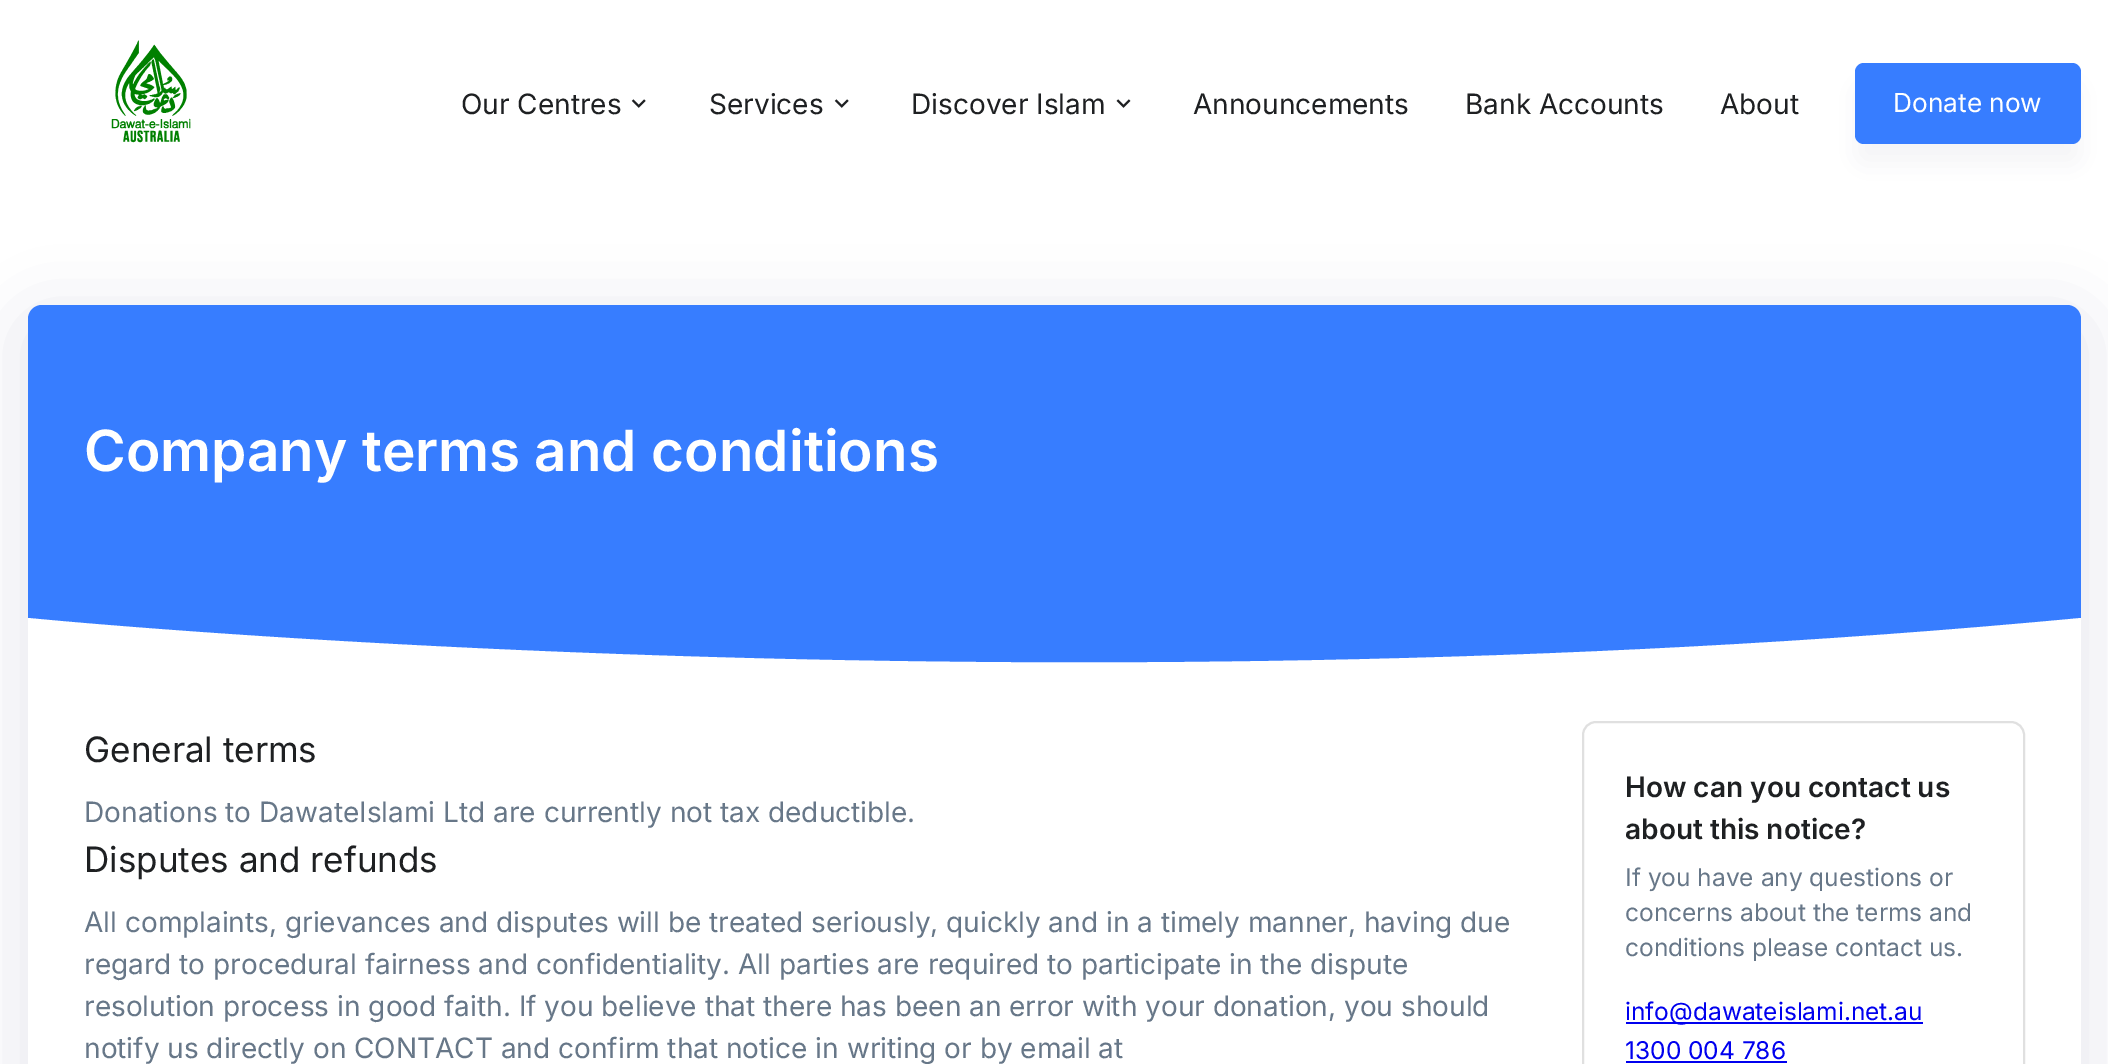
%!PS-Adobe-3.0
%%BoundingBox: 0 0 2108 1064
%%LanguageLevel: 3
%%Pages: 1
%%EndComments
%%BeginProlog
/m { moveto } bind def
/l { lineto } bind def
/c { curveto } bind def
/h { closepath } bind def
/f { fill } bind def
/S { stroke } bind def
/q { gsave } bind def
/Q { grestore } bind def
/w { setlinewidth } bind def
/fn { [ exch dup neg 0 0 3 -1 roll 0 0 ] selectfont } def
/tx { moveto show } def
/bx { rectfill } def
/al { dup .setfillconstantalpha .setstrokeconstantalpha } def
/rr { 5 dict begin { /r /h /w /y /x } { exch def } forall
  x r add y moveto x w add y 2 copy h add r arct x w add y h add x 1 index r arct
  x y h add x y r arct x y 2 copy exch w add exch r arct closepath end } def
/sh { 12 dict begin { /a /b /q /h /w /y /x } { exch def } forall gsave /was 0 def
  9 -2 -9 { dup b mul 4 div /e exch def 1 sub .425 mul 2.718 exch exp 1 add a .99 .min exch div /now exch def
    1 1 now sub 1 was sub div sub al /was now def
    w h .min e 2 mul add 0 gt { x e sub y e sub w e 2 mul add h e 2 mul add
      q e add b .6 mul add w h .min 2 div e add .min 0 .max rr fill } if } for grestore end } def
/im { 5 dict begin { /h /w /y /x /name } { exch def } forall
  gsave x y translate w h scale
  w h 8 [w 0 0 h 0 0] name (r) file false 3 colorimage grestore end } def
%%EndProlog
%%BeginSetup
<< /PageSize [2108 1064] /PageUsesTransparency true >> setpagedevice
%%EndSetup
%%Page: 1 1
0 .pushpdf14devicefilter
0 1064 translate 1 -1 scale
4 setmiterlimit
1 setgray
0 0 2108 1064 bx
(image0.raw) 111 40 80 103 im
/Inter-Regular 28 fn
0.118 0.125 0.133 setrgbcolor
(Our Centres) 461 114 tx
(image1.raw) 631 99 15 9 im
(Services) 709 114 tx
(image1.raw) 834 99 15 9 im
(Discover Islam) 911 114 tx
(image2.raw) 1116 99 15 9 im
(Announcements) 1193 114 tx
(Bank Accounts) 1465 114 tx
(About) 1720 114 tx
0.549 0.596 0.643 setrgbcolor
1855 84 226 81 9 13 0.1 sh
0.216 0.49 1 setrgbcolor
1855 63 226 81 9 rr f
/Inter-Regular 26.25 fn
1 setgray
(Donate now) 1893 112 tx
q
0 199 m 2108 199 l 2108 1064 l 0 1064 l h 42 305 m 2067 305 l 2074.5 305 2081 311.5 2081 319 c 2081 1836 l 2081 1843.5 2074.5 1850 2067 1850 c 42 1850 l 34.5 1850 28 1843.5 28 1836 c 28 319 l 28 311.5 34.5 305 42 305 c h eoclip newpath
0.549 0.596 0.643 setrgbcolor
11 305 2087 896 32 35 0.18 sh
Q
0.216 0.49 1 setrgbcolor
28 305 2053 416 14 rr f
/Inter-SemiBold 56.7 fn
1 setgray
(Company terms and conditions) 84 471 tx
28 618 m 28 618 1027 718 2081 618 c 2081 725 l 28 725 l h f
/Inter-Regular 35 fn
0.118 0.125 0.133 setrgbcolor
(General terms) 84 762 tx
/Inter-Regular 28 fn
0.404 0.467 0.533 setrgbcolor
(Donations to DawateIslami Ltd are currently not tax deductible.) 84 822 tx
/Inter-Regular 35 fn
0.118 0.125 0.133 setrgbcolor
(Disputes and refunds) 84 872 tx
/Inter-Regular 28 fn
0.404 0.467 0.533 setrgbcolor
(All complaints, grievances and disputes will be treated seriously, quickly and in a timely manner, having due) 84 932 tx
(regard to procedural fairness and confidentiality. All parties are required to participate in the dispute) 84 974 tx
(resolution process in good faith. If you believe that there has been an error with your donation, you should) 84 1016 tx
(notify us directly on CONTACT and confirm that notice in writing or by email at) 84 1058 tx
0.878 setgray
2 w
1583 722 441 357 13 rr S
/Inter-SemiBold 28 fn
0.118 0.125 0.133 setrgbcolor
(How can you contact us) 1625 797 tx
(about this notice?) 1625 839 tx
/Inter-Regular 24.5 fn
0.404 0.467 0.533 setrgbcolor
(If you have any questions or) 1625 886 tx
(concerns about the terms and) 1625 921 tx
(conditions please contact us.) 1625 956 tx
0 0 0.933 setrgbcolor
1626 1022 297 2 bx
(info@dawateislami.net.au) 1625 1020 tx
(1300 004 786) 1625 1059 tx
1626 1061 161 2 bx
.poppdf14devicefilter showpage
%%EOF
